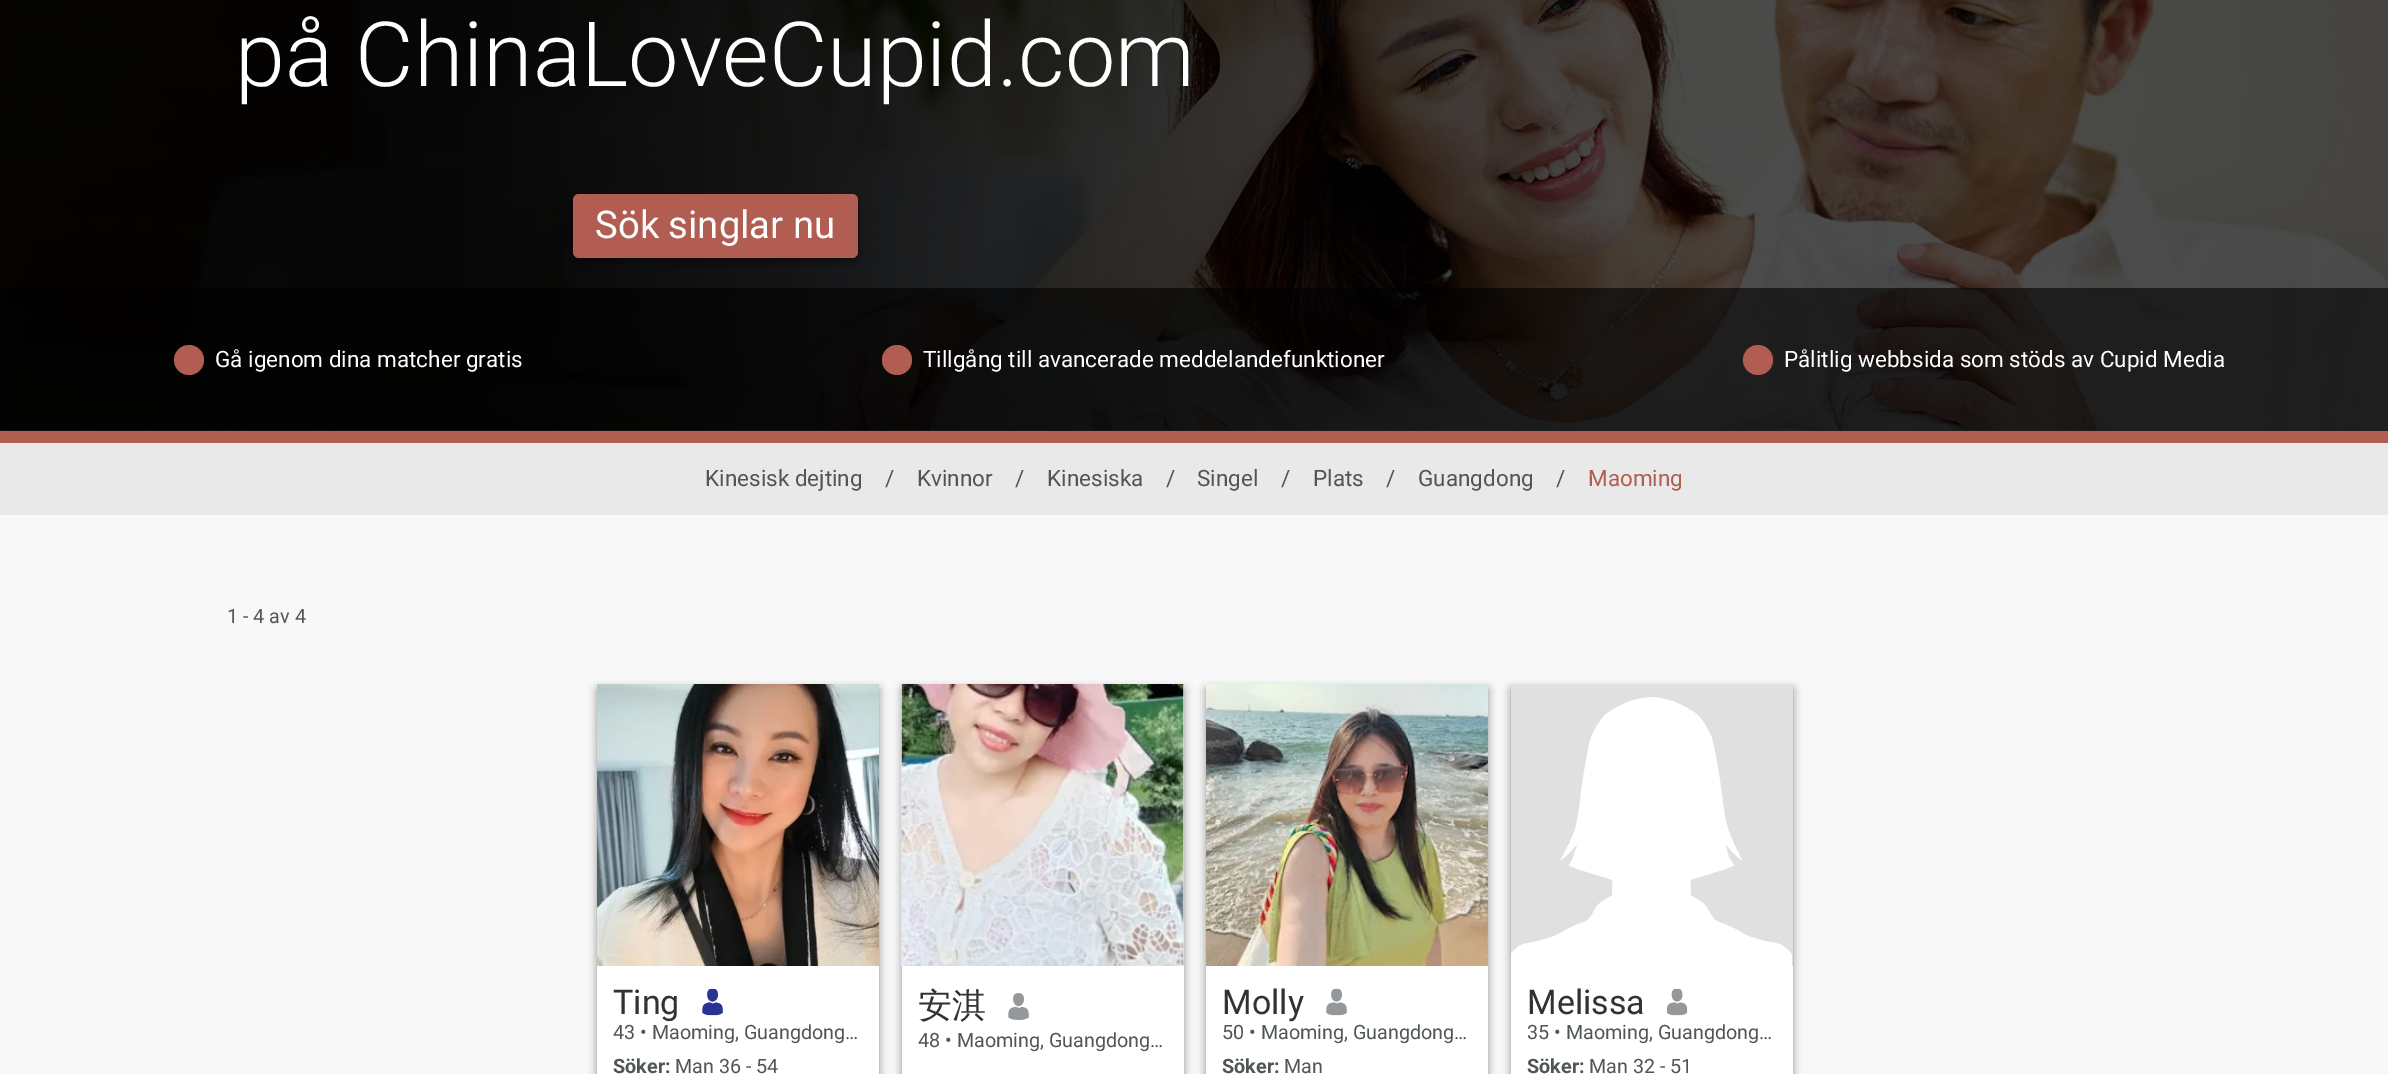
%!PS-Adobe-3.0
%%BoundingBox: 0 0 2388 1074
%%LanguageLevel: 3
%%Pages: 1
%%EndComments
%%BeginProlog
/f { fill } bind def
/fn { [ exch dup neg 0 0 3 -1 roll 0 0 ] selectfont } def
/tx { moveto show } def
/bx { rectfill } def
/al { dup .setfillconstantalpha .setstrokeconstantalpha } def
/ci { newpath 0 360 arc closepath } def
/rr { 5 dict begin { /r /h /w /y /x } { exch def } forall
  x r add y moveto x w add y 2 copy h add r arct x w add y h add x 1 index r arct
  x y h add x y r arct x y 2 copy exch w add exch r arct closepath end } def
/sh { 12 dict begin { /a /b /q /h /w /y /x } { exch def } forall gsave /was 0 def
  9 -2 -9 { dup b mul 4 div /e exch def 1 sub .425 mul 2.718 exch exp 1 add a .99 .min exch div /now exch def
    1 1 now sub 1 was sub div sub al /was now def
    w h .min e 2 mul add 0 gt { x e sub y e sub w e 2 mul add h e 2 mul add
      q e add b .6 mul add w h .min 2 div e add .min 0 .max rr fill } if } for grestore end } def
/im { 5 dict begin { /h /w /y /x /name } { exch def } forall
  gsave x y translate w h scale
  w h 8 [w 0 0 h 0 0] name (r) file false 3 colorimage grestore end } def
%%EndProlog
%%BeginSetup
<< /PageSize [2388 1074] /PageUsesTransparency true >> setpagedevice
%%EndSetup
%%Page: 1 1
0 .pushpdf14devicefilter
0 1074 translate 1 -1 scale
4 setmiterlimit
0.973 setgray
0 0 2388 1074 bx
0.302 setgray
0 430 2388 1 bx
(image0.raw) 0 0 2388 431 im
/Roboto-Light 90 fn
1 setgray
(på ChinaLoveCupid.com) 235 86 tx
0 setgray
573 198 285 65 6 4.5 0.4 sh
0.694 0.365 0.318 setrgbcolor
573 194 285 64 6 rr f
/Roboto-Regular 38.25 fn
1 setgray
(Sök singlar nu) 595 238 tx
0.6 al
0 setgray
0 288 2388 143 bx
1 al
0.694 0.365 0.318 setrgbcolor
189 360 15 ci f
/Roboto-Regular 22.5 fn
1 setgray
(Gå igenom dina matcher gratis) 215 367 tx
0.694 0.365 0.318 setrgbcolor
897 360 15 ci f
1 setgray
(Tillgång till avancerade meddelandefunktioner) 923 367 tx
0.694 0.365 0.318 setrgbcolor
1758 360 15 ci f
1 setgray
(Pålitlig webbsida som stöds av Cupid Media) 1784 367 tx
0.694 0.365 0.318 setrgbcolor
0 431 2388 12 bx
0.914 setgray
0 443 2388 72 bx
0.314 0.337 0.337 setrgbcolor
(Kinesisk dejting) 705 486 tx
(/) 885 486 tx
(Kvinnor) 917 486 tx
(/) 1015 486 tx
(Kinesiska) 1047 486 tx
(/) 1166 486 tx
(Singel) 1197 486 tx
(/) 1281 486 tx
(Plats) 1313 486 tx
(/) 1386 486 tx
(Guangdong) 1418 486 tx
(/) 1556 486 tx
0.694 0.365 0.318 setrgbcolor
(Maoming) 1588 486 tx
/Roboto-Regular 19.75 fn
0.314 0.337 0.337 setrgbcolor
(1 - 4 av 4) 227 623 tx
0 setgray
597 689 282 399 0 4.5 0.4 sh
1 setgray
597 966 282 108 bx
(image1.raw) 597 684 282 282 im
/Roboto-Regular 34 fn
0.196 setgray
(Ting) 613 1014 tx
(image2.raw) 702 988 21 28 im
/Roboto-Regular 19.75 fn
0.314 0.337 0.337 setrgbcolor
(43 • Maoming, Guangdong…) 613 1039 tx
/Roboto-Bold 19.75 fn
(Söker:) 613 1073 tx
/Roboto-Regular 19.75 fn
(Man 36 - 54) 675 1073 tx
0 setgray
902 689 282 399 0 4.5 0.4 sh
1 setgray
902 966 282 108 bx
0.878 setgray
1183 684 1 282 bx
(image3.raw) 901 684 283 282 im
/WenQuanYiZenHei-Medium 34 fn
0.196 setgray
(安淇) 918 1017 tx
(image4.raw) 1008 993 21 27 im
/Roboto-Regular 19.75 fn
0.314 0.337 0.337 setrgbcolor
(48 • Maoming, Guangdong…) 918 1047 tx
0 setgray
1206 689 282 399 0 4.5 0.4 sh
1 setgray
1206 966 282 108 bx
(image5.raw) 1206 684 282 282 im
/Roboto-Regular 34 fn
0.196 setgray
(Molly) 1222 1014 tx
(image6.raw) 1326 988 21 28 im
/Roboto-Regular 19.75 fn
0.314 0.337 0.337 setrgbcolor
(50 • Maoming, Guangdong…) 1222 1039 tx
/Roboto-Bold 19.75 fn
(Söker:) 1222 1073 tx
/Roboto-Regular 19.75 fn
(Man) 1284 1073 tx
0 setgray
1511 689 282 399 0 4.5 0.4 sh
1 setgray
1511 966 282 108 bx
0.878 setgray
1511 684 282 282 bx
(image7.raw) 1511 697 281 269 im
/Roboto-Regular 34 fn
0.196 setgray
(Melissa) 1527 1014 tx
(image8.raw) 1666 988 22 28 im
/Roboto-Regular 19.75 fn
0.314 0.337 0.337 setrgbcolor
(35 • Maoming, Guangdong…) 1527 1039 tx
/Roboto-Bold 19.75 fn
(Söker:) 1527 1073 tx
/Roboto-Regular 19.75 fn
(Man 32 - 51) 1589 1073 tx
.poppdf14devicefilter showpage
%%EOF
